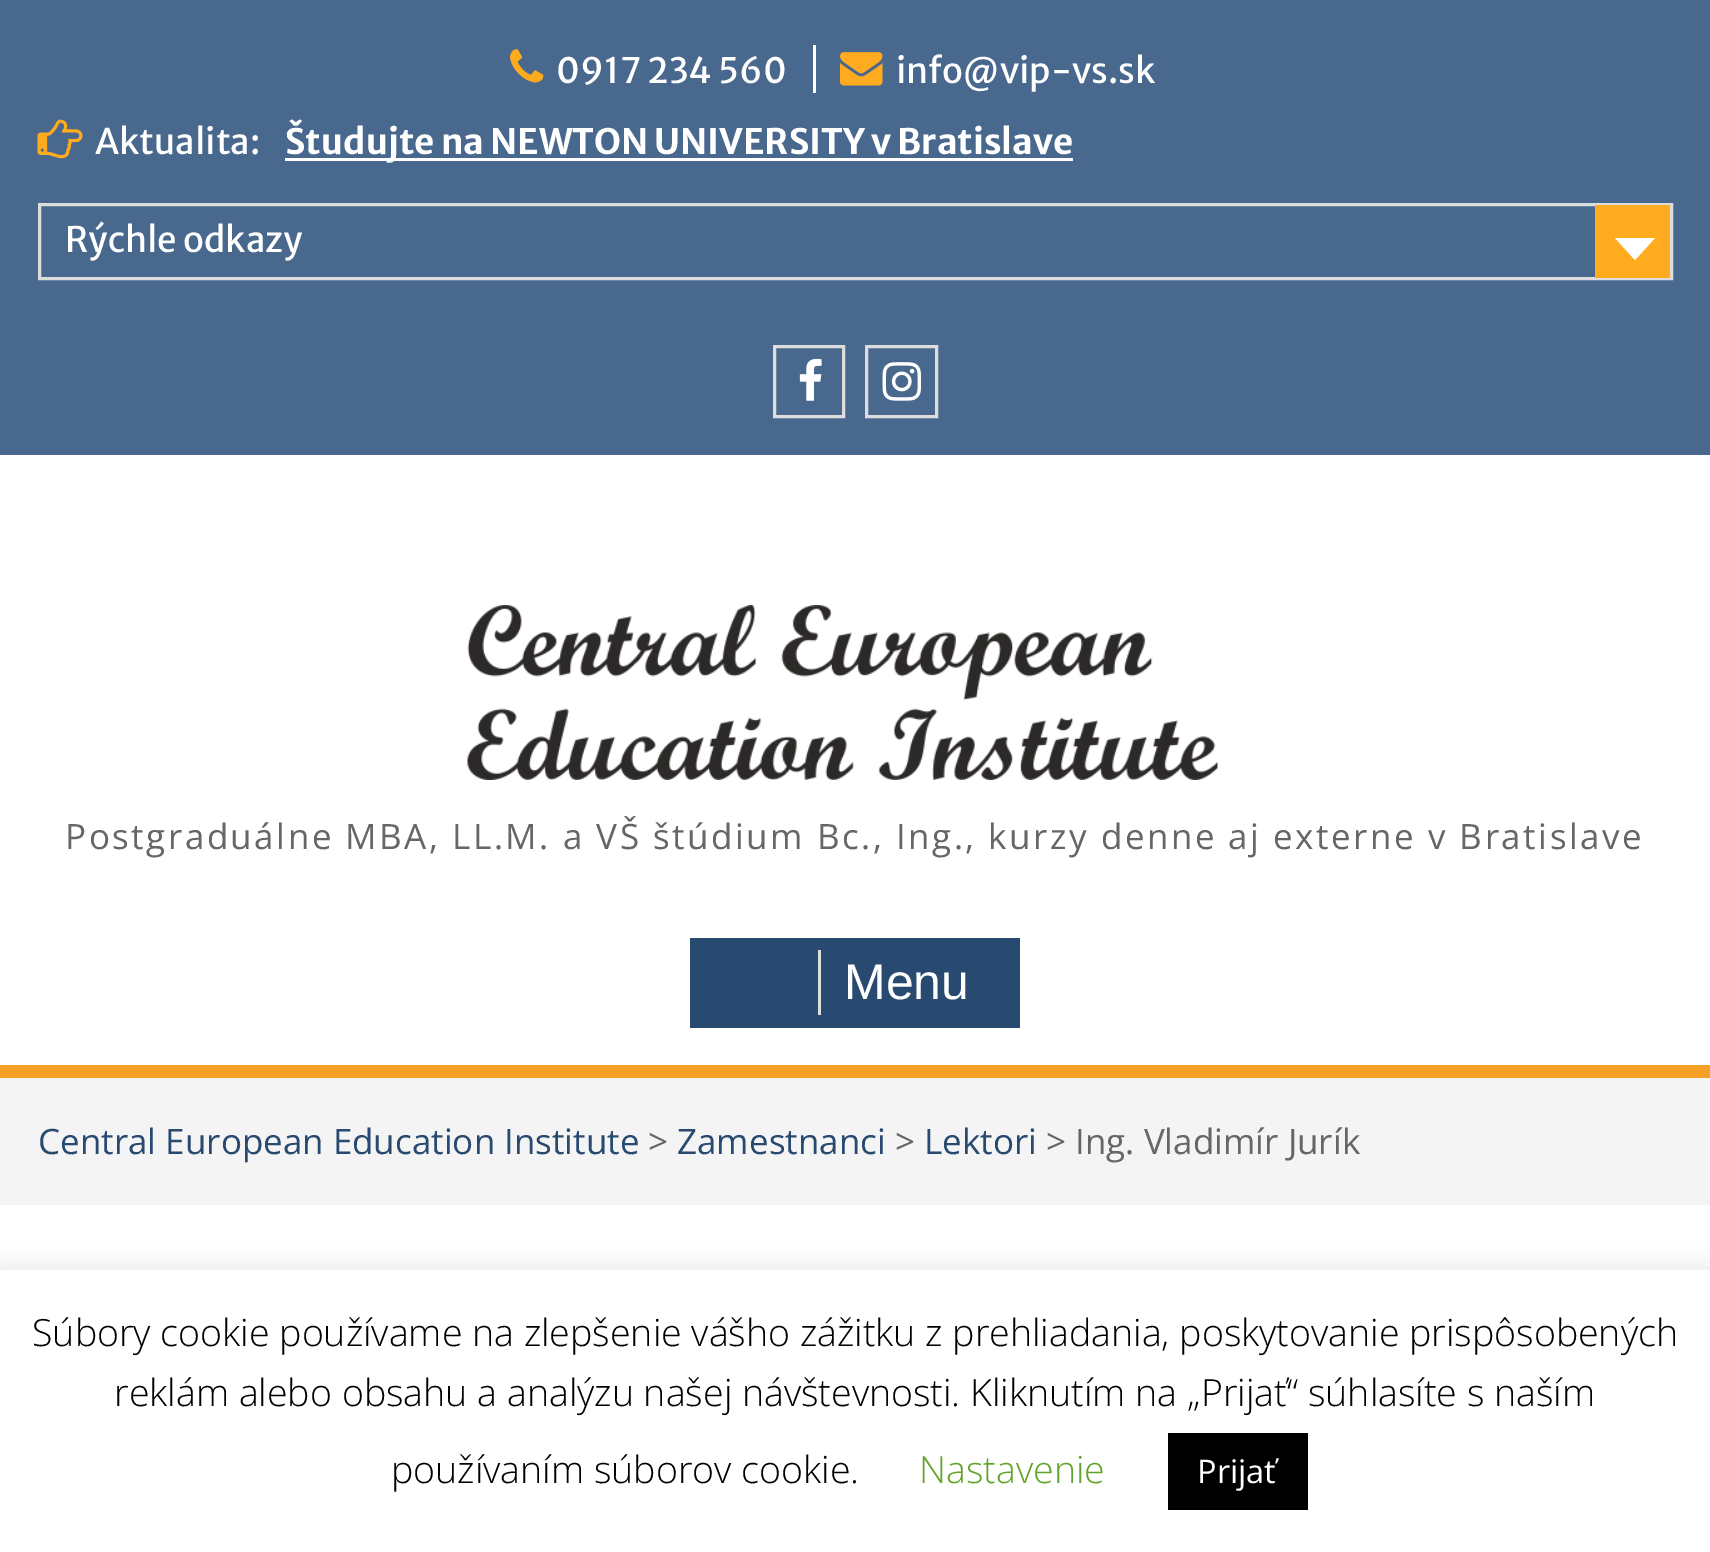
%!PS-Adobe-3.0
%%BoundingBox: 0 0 1710 1552
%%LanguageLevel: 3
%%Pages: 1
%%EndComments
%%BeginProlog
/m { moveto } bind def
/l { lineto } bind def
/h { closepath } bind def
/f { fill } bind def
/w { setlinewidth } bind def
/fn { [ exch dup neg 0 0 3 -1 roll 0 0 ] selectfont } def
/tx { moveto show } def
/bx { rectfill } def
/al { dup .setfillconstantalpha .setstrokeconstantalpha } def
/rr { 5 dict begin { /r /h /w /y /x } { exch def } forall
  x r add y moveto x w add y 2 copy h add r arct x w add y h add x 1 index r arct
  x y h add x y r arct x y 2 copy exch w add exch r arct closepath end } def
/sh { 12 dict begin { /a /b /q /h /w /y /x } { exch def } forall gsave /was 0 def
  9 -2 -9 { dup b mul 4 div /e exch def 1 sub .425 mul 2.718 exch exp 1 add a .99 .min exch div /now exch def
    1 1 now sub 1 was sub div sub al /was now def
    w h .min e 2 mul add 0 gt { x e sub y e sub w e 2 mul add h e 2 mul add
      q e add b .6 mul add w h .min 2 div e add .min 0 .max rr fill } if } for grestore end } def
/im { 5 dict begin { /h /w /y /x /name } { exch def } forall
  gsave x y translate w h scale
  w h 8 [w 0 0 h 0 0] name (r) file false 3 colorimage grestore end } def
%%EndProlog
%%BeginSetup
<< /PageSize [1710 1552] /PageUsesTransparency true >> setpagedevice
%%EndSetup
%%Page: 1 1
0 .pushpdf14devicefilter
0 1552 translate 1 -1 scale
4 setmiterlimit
1 setgray
0 0 1710 1552 bx
0.286 0.408 0.557 setrgbcolor
0 0 1710 455 bx
(image0.raw) 510 49 34 34 im
/MerriweatherSans-Regular 35 fn
1 setgray
(0917 234 560) 556 83 tx
813 45 3 48 bx
(image1.raw) 840 52 43 34 im
(info@vip-vs.sk) 896 83 tx
(image2.raw) 37 119 46 40 im
(Aktualita:) 95 154 tx
285 158 788 3 bx
/MerriweatherSans-Bold 35 fn
(Študujte na NEWTON UNIVERSITY v Bratislave) 285 154 tx
0.867 setgray
3 w
39.5 204.5 1632 74 rectstroke
/MerriweatherSans-Regular 35 fn
1 setgray
(Rýchle odkazy) 65 252 tx
1 0.671 0.122 setrgbcolor
1595 205 75 73 bx
1 setgray
1615 238 m 1655 238 l 1635 260 l h f
0.867 setgray
774.5 346.5 69 70 rectstroke
(image3.raw) 799 358 23 43 im
866.5 346.5 70 70 rectstroke
(image4.raw) 882 362 40 39 im
(image5.raw) 467 605 751 175 im
/OpenSans-Regular 35 fn
0.4 setgray
65 849 m 2.5 0 (Postgraduálne MBA, LL.M. a VŠ štúdium Bc., Ing., kurzy denne aj externe v Bratislave) ashow
0.957 0.627 0.141 setrgbcolor
0 1065 1710 13 bx
0.161 0.29 0.439 setrgbcolor
690 938 330 90 bx
0.867 setgray
818 950 3 65 bx
/LiberationSans-Regular 50 fn
1 setgray
(Menu) 844 999 tx
0.957 setgray
0 1078 1710 127 bx
/OpenSans-Regular 35 fn
0.161 0.29 0.439 setrgbcolor
(Central European Education Institute) 38 1154 tx
0.4 setgray
(>) 648 1154 tx
0.161 0.29 0.439 setrgbcolor
(Zamestnanci) 677 1154 tx
0.4 setgray
(>) 895 1154 tx
0.161 0.29 0.439 setrgbcolor
(Lektori) 924 1154 tx
0.4 setgray
(> Ing. Vladimír Jurík) 1046 1154 tx
0.675 0.671 0.671 setrgbcolor
0 1268 1710 282 0 12.5 0.3 sh
1 setgray
0 1270 1710 282 bx
/OpenSans-Light 37.5 fn
0 setgray
(Súbory cookie používame na zlepšenie vášho zážitku z prehliadania, poskytovanie prispôsobených) 32 1346 tx
(reklám alebo obsahu a analýzu našej návštevnosti. Kliknutím na „Prijať“ súhlasíte s naším) 114 1406 tx
(používaním súborov cookie.) 391 1483 tx
0.384 0.639 0.161 setrgbcolor
(Nastavenie) 919 1483 tx
0 setgray
1168 1433 140 77 bx
/OpenSans-Regular 32.5 fn
1 setgray
(Prijať) 1197 1483 tx
.poppdf14devicefilter showpage
%%EOF
